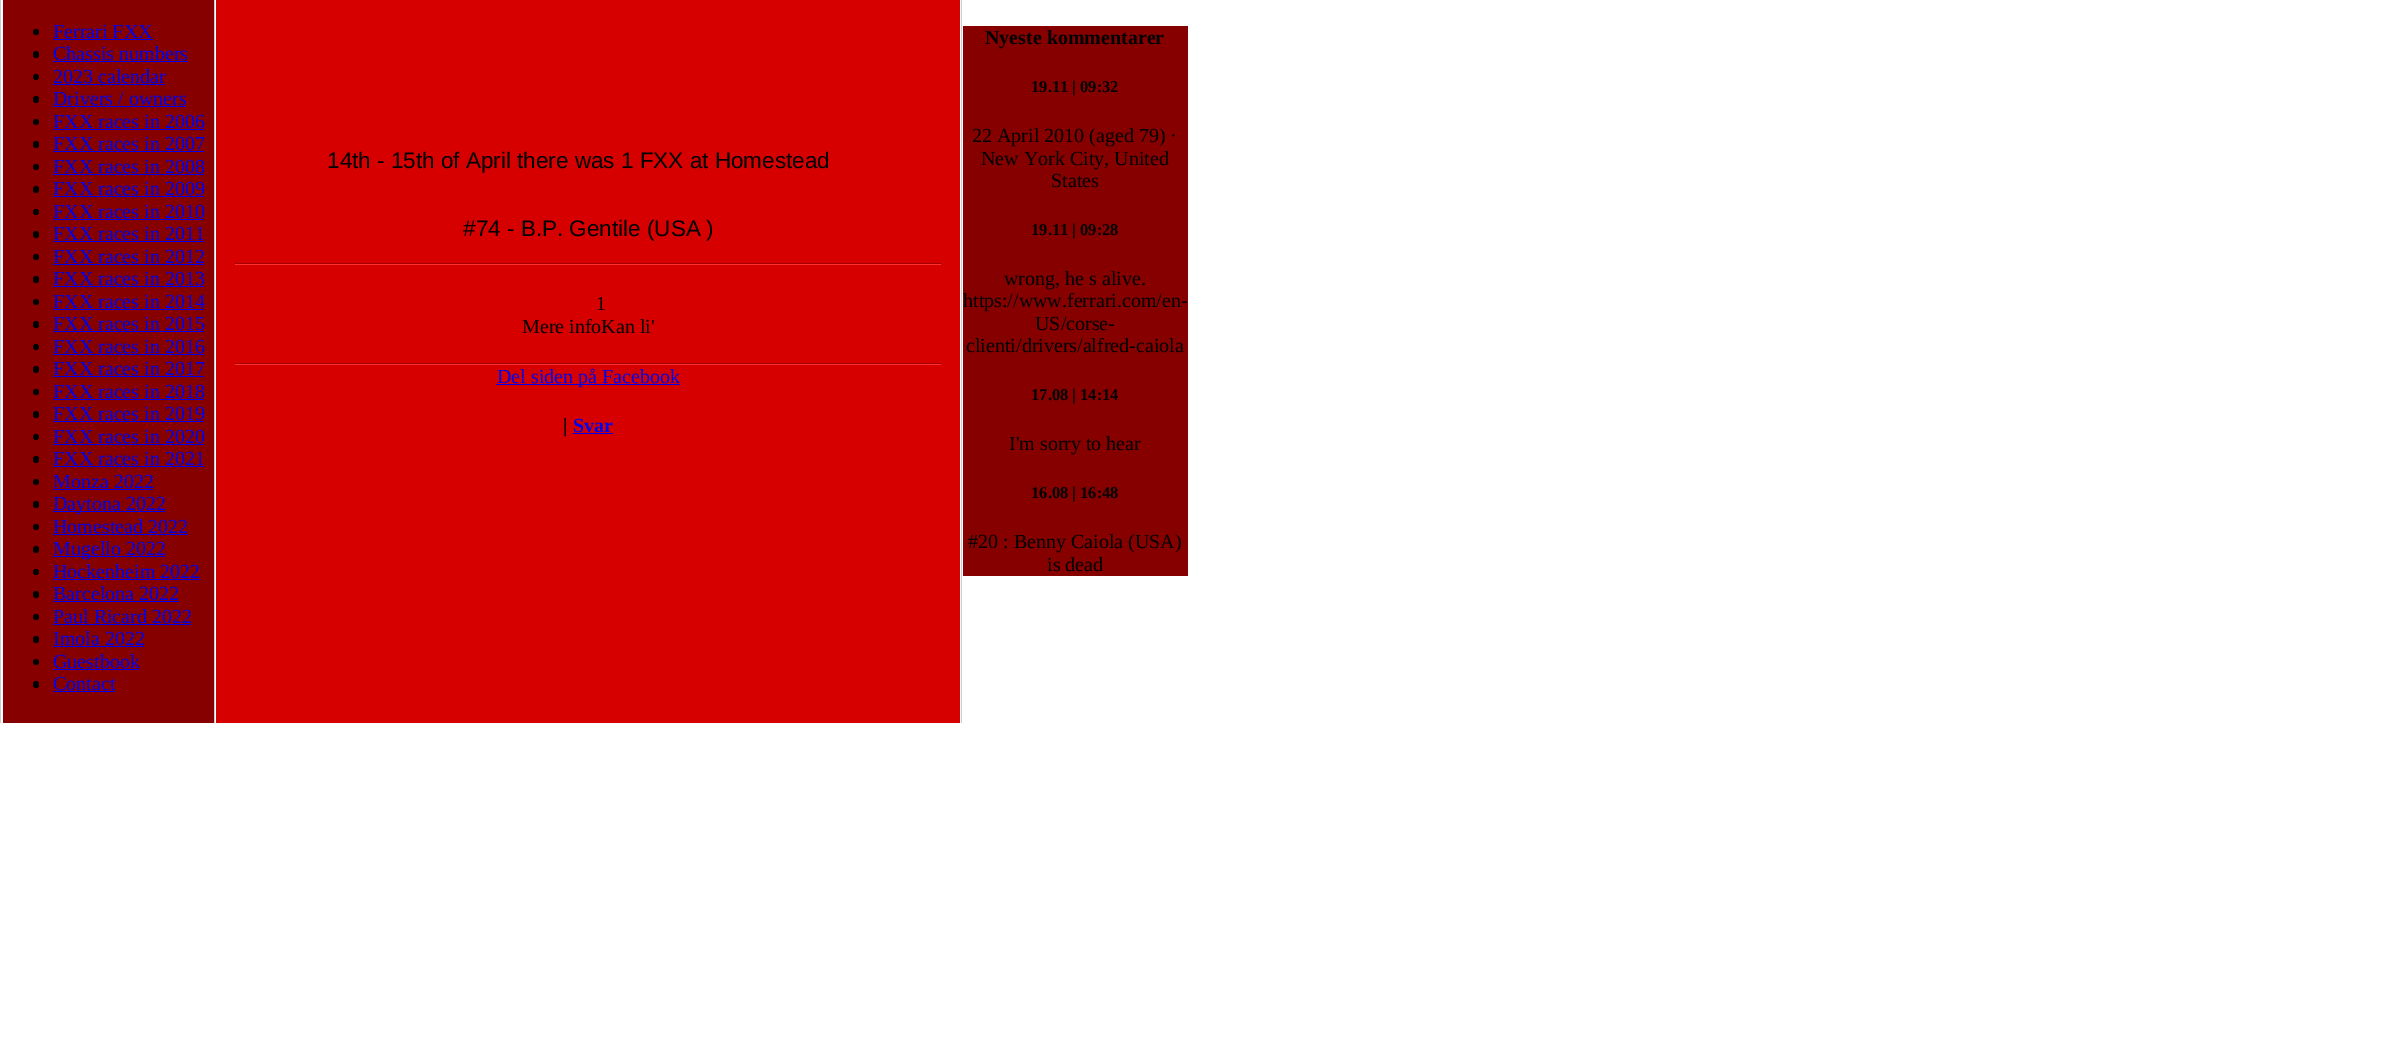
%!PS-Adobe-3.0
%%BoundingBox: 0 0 2397 1057
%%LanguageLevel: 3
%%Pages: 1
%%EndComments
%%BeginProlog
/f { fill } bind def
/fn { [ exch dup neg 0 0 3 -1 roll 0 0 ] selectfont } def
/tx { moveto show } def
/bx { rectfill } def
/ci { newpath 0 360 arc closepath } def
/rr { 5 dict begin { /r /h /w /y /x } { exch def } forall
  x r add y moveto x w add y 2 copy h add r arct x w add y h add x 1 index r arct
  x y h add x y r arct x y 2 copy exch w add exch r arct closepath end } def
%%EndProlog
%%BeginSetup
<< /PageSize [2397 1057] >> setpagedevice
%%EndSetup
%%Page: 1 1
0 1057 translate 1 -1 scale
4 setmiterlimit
1 setgray
0 0 2397 1057 bx
0.8 setgray
0 0 1 723 bx
0.529 0 0 setrgbcolor
3 0 211 723 bx
0 setgray
36 32 3 ci f
/LiberationSerif-Regular 20 fn
0 0 0.933 setrgbcolor
(Ferrari FXX) 53 38 tx
53 39 100 1 bx
0 setgray
33 51 6 7 3 rr f
0 0 0.933 setrgbcolor
(Chassis numbers) 53 60 tx
53 61 135 1 bx
0 setgray
36 77 3 ci f
0 0 0.933 setrgbcolor
(2023 calendar) 53 83 tx
53 84 112 1 bx
0 setgray
33 96 6 7 3 rr f
0 0 0.933 setrgbcolor
(Drivers / owners) 53 105 tx
53 106 133 1 bx
0 setgray
36 122 3 ci f
0 0 0.933 setrgbcolor
(FXX races in 2006) 53 128 tx
53 129 151 1 bx
0 setgray
33 141 6 7 3 rr f
0 0 0.933 setrgbcolor
(FXX races in 2007) 53 150 tx
53 151 151 1 bx
0 setgray
36 167 3 ci f
0 0 0.933 setrgbcolor
(FXX races in 2008) 53 173 tx
53 174 151 1 bx
0 setgray
33 186 6 7 3 rr f
0 0 0.933 setrgbcolor
(FXX races in 2009) 53 195 tx
53 196 151 1 bx
0 setgray
36 212 3 ci f
0 0 0.933 setrgbcolor
(FXX races in 2010) 53 218 tx
53 219 151 1 bx
0 setgray
33 231 6 7 3 rr f
0 0 0.933 setrgbcolor
(FXX races in 2011) 53 240 tx
53 241 151 1 bx
0 setgray
36 257 3 ci f
0 0 0.933 setrgbcolor
(FXX races in 2012) 53 263 tx
53 264 151 1 bx
0 setgray
33 276 6 7 3 rr f
0 0 0.933 setrgbcolor
(FXX races in 2013) 53 285 tx
53 286 151 1 bx
0 setgray
36 302 3 ci f
0 0 0.933 setrgbcolor
(FXX races in 2014) 53 308 tx
53 309 151 1 bx
0 setgray
33 321 6 7 3 rr f
0 0 0.933 setrgbcolor
(FXX races in 2015) 53 330 tx
53 331 151 1 bx
0 setgray
36 347 3 ci f
0 0 0.933 setrgbcolor
(FXX races in 2016) 53 353 tx
53 354 151 1 bx
0 setgray
33 366 6 7 3 rr f
0 0 0.933 setrgbcolor
(FXX races in 2017) 53 375 tx
53 376 151 1 bx
0 setgray
36 392 3 ci f
0 0 0.933 setrgbcolor
(FXX races in 2018) 53 398 tx
53 399 151 1 bx
0 setgray
33 411 6 7 3 rr f
0 0 0.933 setrgbcolor
(FXX races in 2019) 53 420 tx
53 421 151 1 bx
0 setgray
36 437 3 ci f
0 0 0.933 setrgbcolor
(FXX races in 2020) 53 443 tx
53 444 151 1 bx
0 setgray
33 456 6 7 3 rr f
0 0 0.933 setrgbcolor
(FXX races in 2021) 53 465 tx
53 466 151 1 bx
0 setgray
36 482 3 ci f
0 0 0.933 setrgbcolor
(Monza 2022) 53 488 tx
53 489 100 1 bx
0 setgray
33 501 6 7 3 rr f
0 0 0.933 setrgbcolor
53 511 112 1 bx
(Daytona 2022) 53 510 tx
0 setgray
36 527 3 ci f
0 0 0.933 setrgbcolor
(Homestead 2022) 53 533 tx
53 534 135 1 bx
0 setgray
33 546 6 7 3 rr f
0 0 0.933 setrgbcolor
53 556 112 1 bx
(Mugello 2022) 53 555 tx
0 setgray
36 572 3 ci f
0 0 0.933 setrgbcolor
(Hockenheim 2022) 53 578 tx
53 579 147 1 bx
0 setgray
33 591 6 7 3 rr f
0 0 0.933 setrgbcolor
(Barcelona 2022) 53 600 tx
53 601 126 1 bx
0 setgray
36 617 3 ci f
0 0 0.933 setrgbcolor
(Paul Ricard 2022) 53 623 tx
53 624 138 1 bx
0 setgray
33 636 6 7 3 rr f
0 0 0.933 setrgbcolor
(Imola 2022) 53 645 tx
53 646 91 1 bx
0 setgray
36 662 3 ci f
0 0 0.933 setrgbcolor
(Guestbook) 53 668 tx
53 669 86 1 bx
0 setgray
33 681 6 7 3 rr f
0 0 0.933 setrgbcolor
(Contact) 53 690 tx
53 691 62 1 bx
0.8 setgray
214 0 1 723 bx
0.843 0 0 setrgbcolor
216 0 744 723 bx
/LiberationSans-Regular 22.5 fn
0 setgray
(14th - 15th of April there was 1 FXX at Homestead) 327 168 tx
(#74 - B.P. Gentile \(USA) 463 236 tx
(\)) 706 236 tx
0.647 0 0 setrgbcolor
235 263 706 1 bx
1 0.196 0.196 setrgbcolor
235 264 706 1 bx
/LiberationSerif-Regular 20 fn
0 setgray
(1) 596 310 tx
(Mere infoKan li') 522 333 tx
0.647 0 0 setrgbcolor
235 363 706 1 bx
1 0.196 0.196 setrgbcolor
235 364 706 1 bx
0 0 0.933 setrgbcolor
496 384 184 1 bx
(Del siden på Facebook) 497 383 tx
/LiberationSerif-Bold 20 fn
0 setgray
(|) 563 432 tx
0 0 0.933 setrgbcolor
(Svar) 573 432 tx
573 433 40 1 bx
0.8 setgray
961 0 1 723 bx
0.529 0 0 setrgbcolor
963 26 225 550 bx
0 setgray
(Nyeste kommentarer) 985 44 tx
/LiberationSerif-Bold 16.5 fn
(19.11 | 09:32) 1031 92 tx
/LiberationSerif-Regular 20 fn
(22 April 2010 \(aged 79\) ·) 972 142 tx
(New York City, United) 981 165 tx
(States) 1051 187 tx
/LiberationSerif-Bold 16.5 fn
(19.11 | 09:28) 1031 235 tx
/LiberationSerif-Regular 20 fn
(wrong, he s alive.) 1004 285 tx
(https://www.ferrari.com/en-) 963 307 tx
(US/corse-) 1035 330 tx
(clienti/drivers/alfred-caiola) 966 352 tx
/LiberationSerif-Bold 16.5 fn
(17.08 | 14:14) 1031 400 tx
/LiberationSerif-Regular 20 fn
(I'm sorry to hear) 1009 450 tx
/LiberationSerif-Bold 16.5 fn
(16.08 | 16:48) 1031 498 tx
/LiberationSerif-Regular 20 fn
(#20 : Benny Caiola \(USA\)) 968 548 tx
(is dead) 1047 571 tx
showpage
%%EOF
